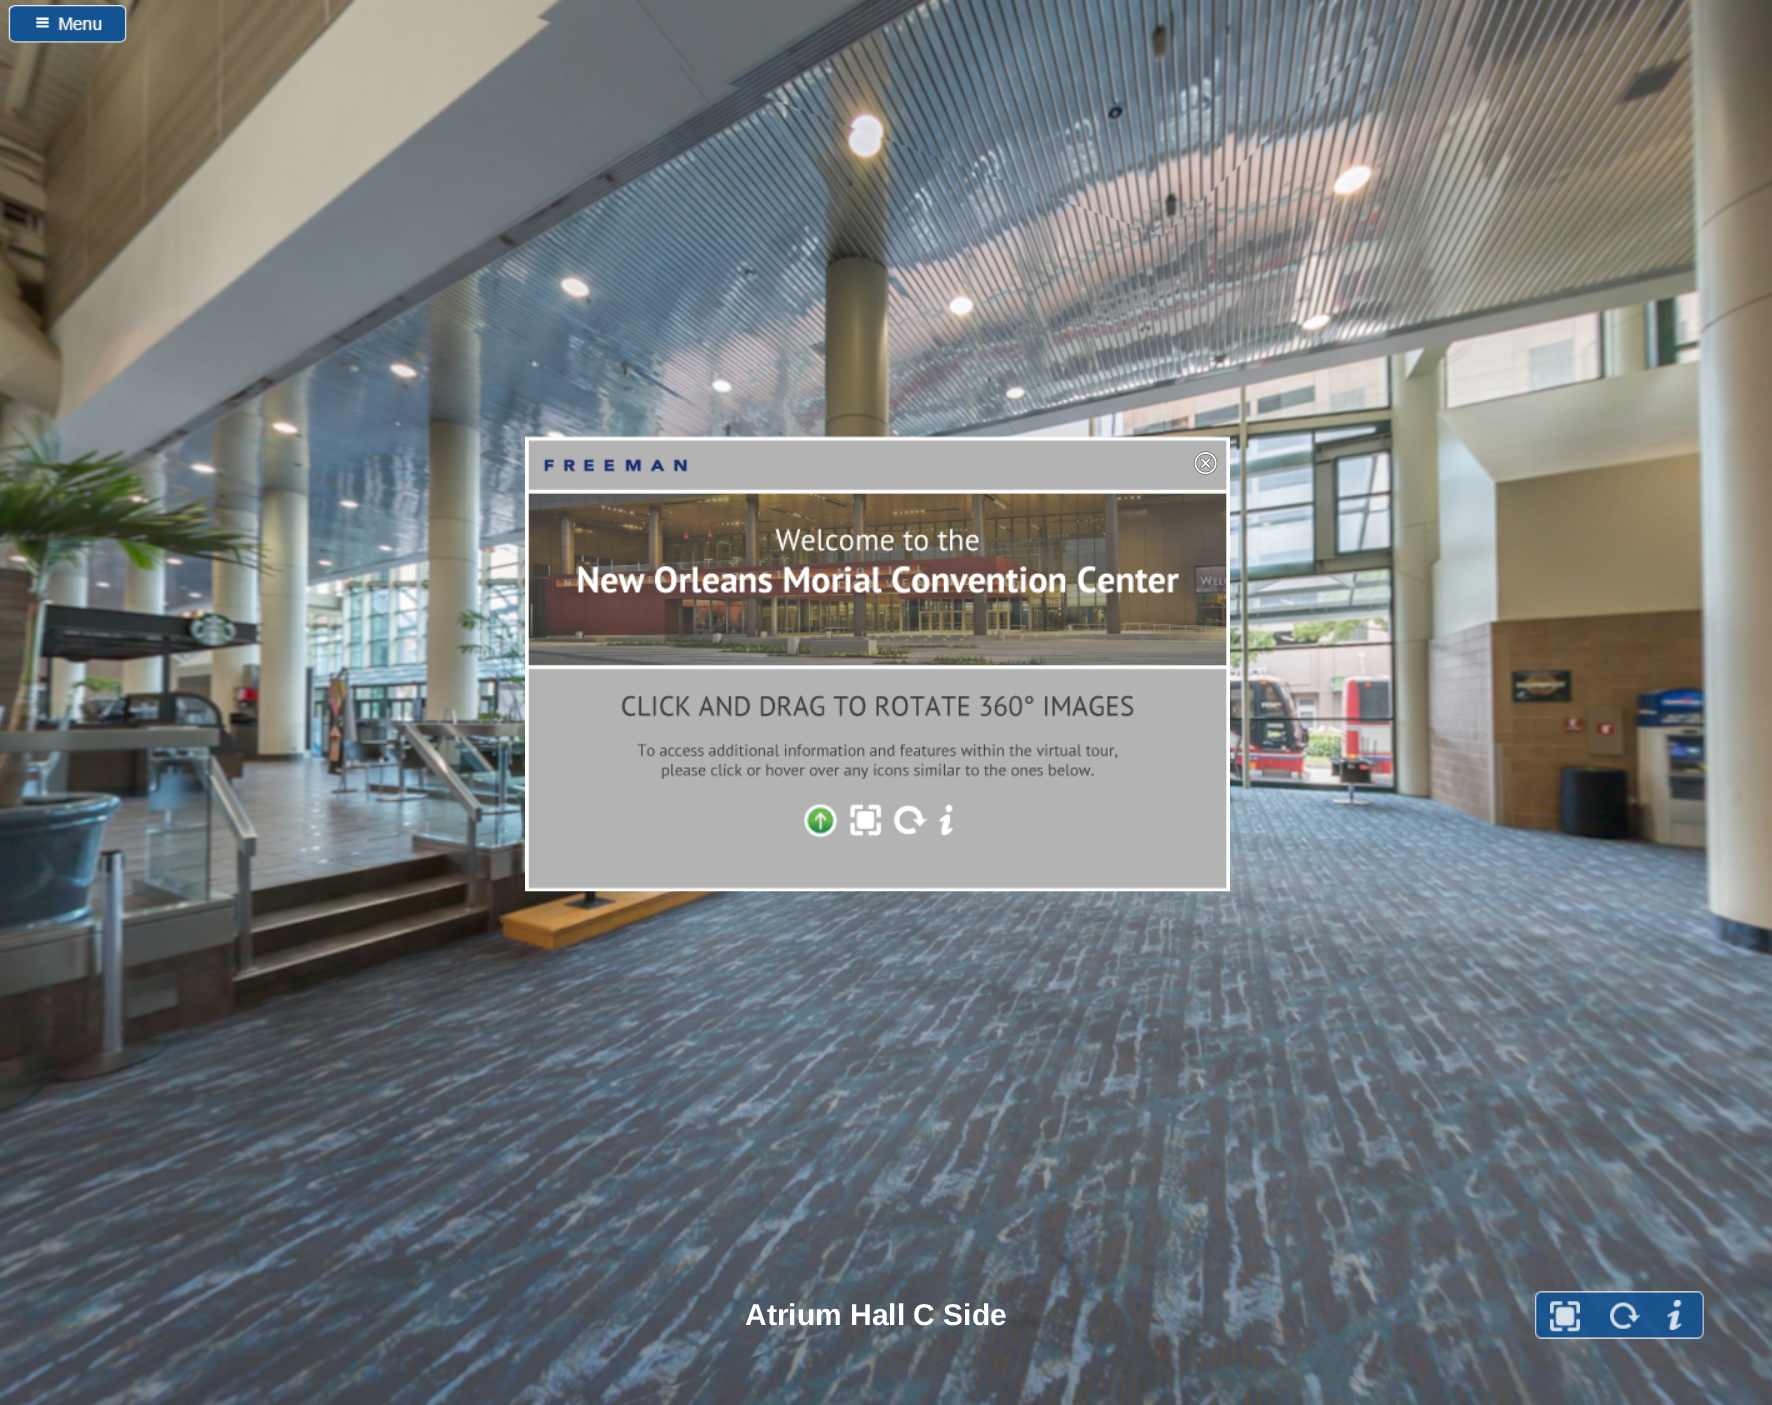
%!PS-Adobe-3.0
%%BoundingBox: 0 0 1772 1405
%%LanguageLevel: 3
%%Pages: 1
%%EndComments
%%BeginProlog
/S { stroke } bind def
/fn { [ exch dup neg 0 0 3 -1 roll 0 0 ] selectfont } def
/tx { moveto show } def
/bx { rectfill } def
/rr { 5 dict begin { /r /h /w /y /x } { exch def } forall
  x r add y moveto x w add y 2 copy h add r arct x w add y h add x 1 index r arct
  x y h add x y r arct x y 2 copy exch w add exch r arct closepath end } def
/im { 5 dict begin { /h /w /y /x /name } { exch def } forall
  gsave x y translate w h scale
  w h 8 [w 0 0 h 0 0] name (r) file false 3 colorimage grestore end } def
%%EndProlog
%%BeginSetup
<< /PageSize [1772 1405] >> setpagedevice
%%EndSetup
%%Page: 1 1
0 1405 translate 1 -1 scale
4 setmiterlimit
1 setgray
0 0 1772 1405 bx
(image0.raw) 0 0 1772 1405 im
9.5 6.5 44 32 3.5 rr S
(image1.raw) 8 5 119 38 im
(image2.raw) 525 436 705 456 im
(image3.raw) 1193 451 25 24 im
/LiberationSans-Bold 30 fn
(Atrium Hall C Side) 745 1325 tx
(image4.raw) 1535 1291 169 48 im
(image5.raw) 1550 1301 30 31 im
(image6.raw) 1610 1302 30 27 im
(image7.raw) 1667 1300 15 30 im
showpage
%%EOF
